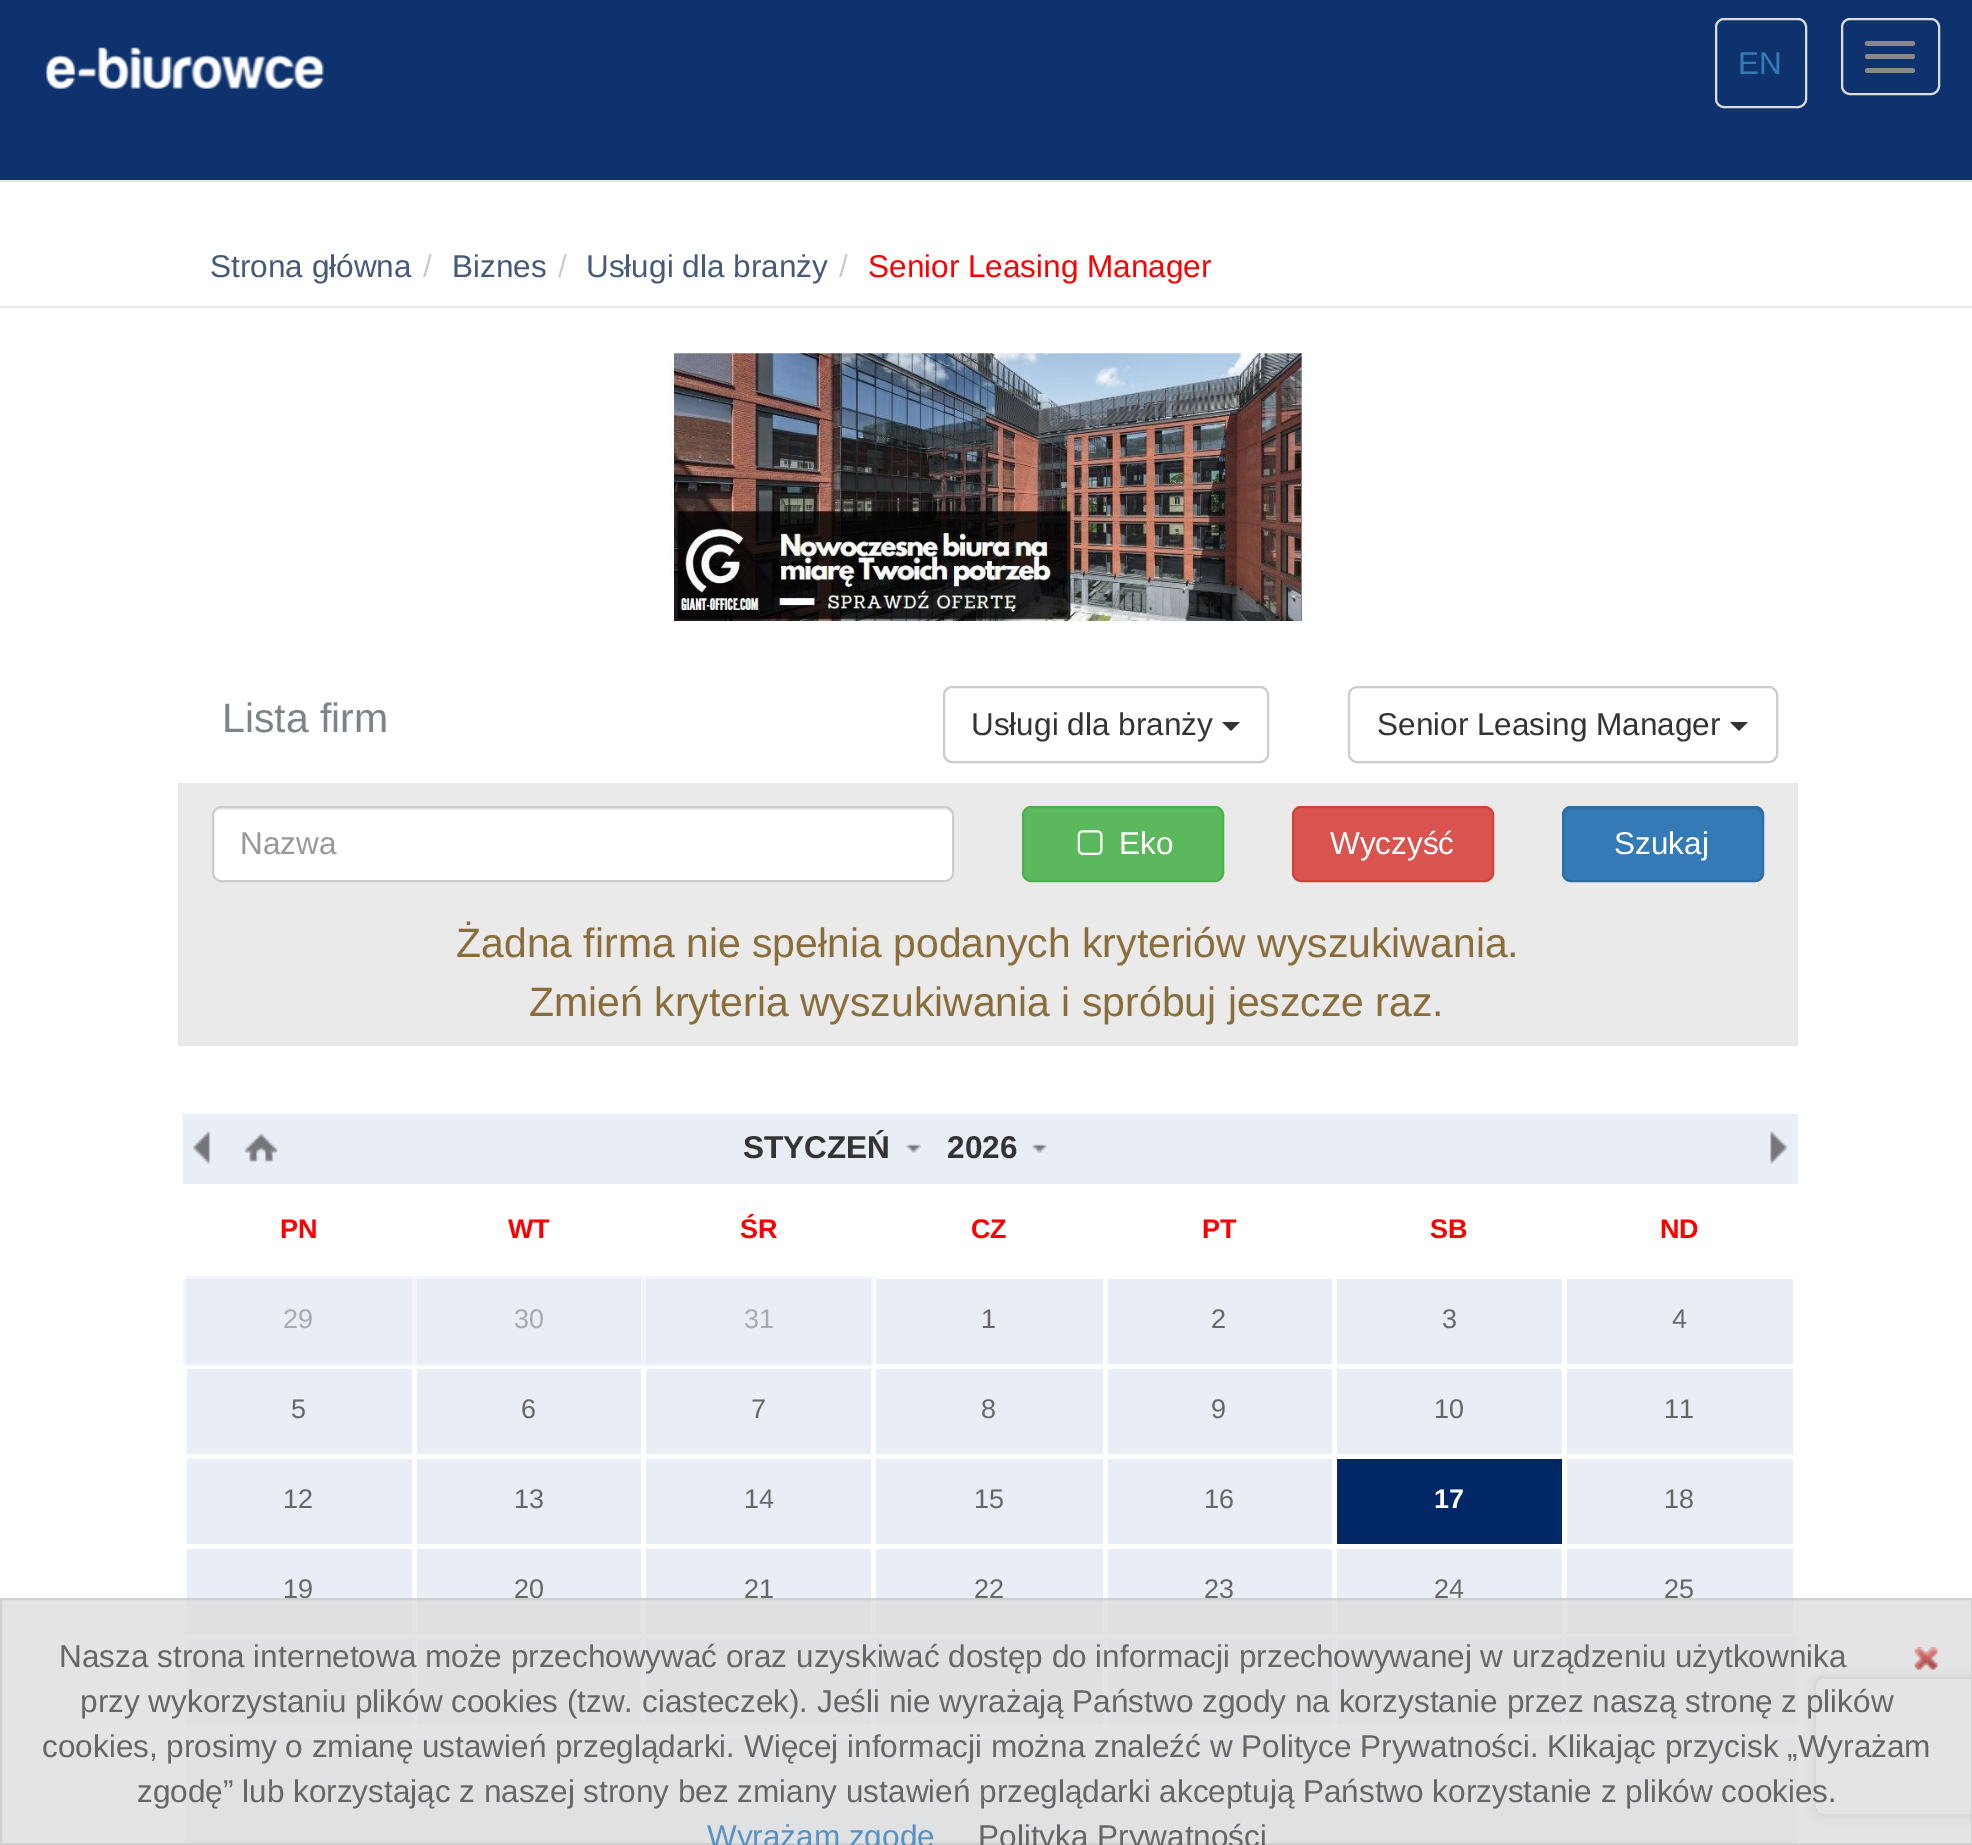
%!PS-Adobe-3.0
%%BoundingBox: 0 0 1972 1845
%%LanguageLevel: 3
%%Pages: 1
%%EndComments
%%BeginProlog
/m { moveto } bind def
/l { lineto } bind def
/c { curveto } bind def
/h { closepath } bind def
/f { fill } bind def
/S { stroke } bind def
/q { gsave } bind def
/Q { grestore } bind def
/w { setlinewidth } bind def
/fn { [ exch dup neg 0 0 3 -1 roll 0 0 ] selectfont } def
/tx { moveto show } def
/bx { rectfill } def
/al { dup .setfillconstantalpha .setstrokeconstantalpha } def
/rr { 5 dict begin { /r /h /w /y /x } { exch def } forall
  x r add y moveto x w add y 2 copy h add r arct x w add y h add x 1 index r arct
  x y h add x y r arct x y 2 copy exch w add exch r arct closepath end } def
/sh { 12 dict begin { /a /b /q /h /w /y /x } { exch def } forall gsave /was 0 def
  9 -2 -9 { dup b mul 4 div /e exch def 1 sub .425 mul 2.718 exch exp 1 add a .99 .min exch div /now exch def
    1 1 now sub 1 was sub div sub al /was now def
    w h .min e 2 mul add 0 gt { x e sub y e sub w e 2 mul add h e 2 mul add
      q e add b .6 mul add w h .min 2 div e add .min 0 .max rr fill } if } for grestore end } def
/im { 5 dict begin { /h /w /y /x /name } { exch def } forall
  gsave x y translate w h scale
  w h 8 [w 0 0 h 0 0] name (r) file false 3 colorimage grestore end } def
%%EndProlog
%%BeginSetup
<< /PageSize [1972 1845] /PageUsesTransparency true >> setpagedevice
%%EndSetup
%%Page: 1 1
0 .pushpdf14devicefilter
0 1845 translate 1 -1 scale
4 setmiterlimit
1 setgray
0 0 1972 1845 bx
0.055 0.196 0.431 setrgbcolor
0 0 1972 180 bx
0.906 setgray
0 180 1972 2 bx
(image0.raw) 46 47 278 42 im
0.867 setgray
2 w
1716 19 90 88 8 rr S
/LiberationSans-Regular 31.5 fn
0.2 0.478 0.718 setrgbcolor
(EN) 1738 74 tx
0.867 setgray
1842 19 97 75 8 rr S
0.533 setgray
1865 41 50 5 2.5 rr f
1865 54 50 5 2.5 rr f
1865 68 50 5 2.5 rr f
0.89 0.906 0.941 setrgbcolor
0 306 1972 2 bx
0.271 0.349 0.478 setrgbcolor
(Strona główna) 210 277 tx
0.8 setgray
(/) 423 277 tx
0.271 0.349 0.478 setrgbcolor
(Biznes) 452 277 tx
0.8 setgray
(/) 558 277 tx
0.271 0.349 0.478 setrgbcolor
(Usługi dla branży) 586 277 tx
0.8 setgray
(/) 839 277 tx
0.98 0.008 0.012 setrgbcolor
(Senior Leasing Manager) 868 277 tx
(image1.raw) 668 353 644 268 im
/LiberationSans-Regular 40.95 fn
0.486 0.514 0.537 setrgbcolor
(Lista firm) 222 732 tx
0.8 setgray
944 687 324 75 8 rr S
/LiberationSans-Regular 31.5 fn
0.2 setgray
(Usługi dla branży) 971 735 tx
1222 722 m 1240 722 l 1231 731 l h f
0.8 setgray
1349 687 428 75 8 rr S
0.2 setgray
(Senior Leasing Manager) 1377 735 tx
1730 722 m 1748 722 l 1739 731 l h f
0.918 setgray
178 783 1620 263 bx
1 setgray
212 806 742 76 9 rr f
0.925 setgray
220 810 m 945 810 l 949 810 952 813 952 817 c 952 813 950 808 945 808 c 221 808 l 216 808 214 813 214 817 c 214 813 217 810 220 810 c h f
0.8 setgray
213 807 740 74 8 rr S
0.6 setgray
(Nazwa) 240 854 tx
0.361 0.722 0.361 setrgbcolor
1023 807 200 74 8 rr q f Q
0.298 0.682 0.298 setrgbcolor
S
(image2.raw) 1077 830 26 25 im
1 setgray
(Eko) 1119 854 tx
0.851 0.325 0.31 setrgbcolor
1293 807 200 74 8 rr q f Q
0.831 0.247 0.227 setrgbcolor
S
1 setgray
(Wyczyść) 1330 854 tx
0.2 0.478 0.718 setrgbcolor
1562 806 202 76 9 rr f
0.184 0.443 0.663 setrgbcolor
1570 810 m 1755 810 l 1759 810 1762 813 1762 817 c 1762 815 l 1762 811 1759 808 1755 808 c 1571 808 l 1567 808 1564 811 1564 815 c 1564 817 l 1564 813 1567 810 1570 810 c h f
0.18 0.427 0.643 setrgbcolor
1563 807 200 74 8 rr S
1 setgray
(Szukaj) 1614 854 tx
/LiberationSans-Regular 40.95 fn
0.541 0.427 0.231 setrgbcolor
(Żadna firma nie spełnia podanych kryteriów wyszukiwania.) 456 957 tx
(Zmień kryteria wyszukiwania i spróbuj jeszcze raz.) 529 1016 tx
0.914 0.929 0.965 setrgbcolor
183 1114 1615 610 bx
0.957 0.965 0.984 setrgbcolor
183 1274 2 94 bx
0.937 0.949 0.976 setrgbcolor
185 1276 2 90 bx
0.949 0.957 0.98 setrgbcolor
412 1276 5 90 bx
641 1276 5 90 bx
0.957 0.965 0.984 setrgbcolor
1562 1726 236 2 bx
0.937 0.949 0.976 setrgbcolor
1564 1724 232 2 bx
(image3.raw) 193 1131 17 33 im
(image4.raw) 244 1133 34 29 im
/LiberationSans-Bold 31.5 fn
0.2 setgray
(STYCZEŃ) 743 1158 tx
(image5.raw) 906 1144 15 9 im
(2026) 947 1158 tx
(image5.raw) 1032 1144 15 9 im
(image6.raw) 1770 1131 17 33 im
1 setgray
187 1189 1606 85 bx
1562 1274 236 5 bx
1562 1364 236 5 bx
1562 1454 236 5 bx
1562 1544 236 5 bx
0.957 0.965 0.984 setrgbcolor
1796 1634 2 94 bx
0.937 0.949 0.976 setrgbcolor
1793 1636 3 90 bx
1 setgray
1793 1544 5 94 bx
1332 1634 234 5 bx
1562 1634 5 94 bx
0.957 0.965 0.984 setrgbcolor
1564 1636 3 90 bx
1 setgray
1562 1634 236 5 bx
0.957 0.965 0.984 setrgbcolor
1564 1636 232 3 bx
1 setgray
1562 1544 5 94 bx
1332 1544 234 5 bx
1562 1454 5 94 bx
1332 1454 234 5 bx
1562 1364 5 94 bx
1332 1364 234 5 bx
1562 1274 5 94 bx
1332 1274 234 5 bx
1332 1634 5 94 bx
1103 1634 234 5 bx
1332 1544 5 94 bx
1103 1544 234 5 bx
1332 1454 5 94 bx
1103 1454 234 5 bx
1332 1364 5 94 bx
1103 1364 234 5 bx
1332 1274 5 94 bx
1103 1274 234 5 bx
1103 1634 5 94 bx
871 1634 236 5 bx
1103 1544 5 94 bx
871 1544 236 5 bx
1103 1454 5 94 bx
871 1454 236 5 bx
1103 1364 5 94 bx
871 1364 236 5 bx
1103 1274 5 94 bx
871 1274 236 5 bx
871 1634 5 94 bx
641 1634 234 5 bx
871 1544 5 94 bx
641 1544 234 5 bx
871 1454 5 94 bx
641 1454 234 5 bx
871 1364 5 94 bx
641 1366 234 3 bx
0.957 0.965 0.984 setrgbcolor
644 1364 229 2 bx
1 setgray
871 1274 5 94 bx
0.957 0.965 0.984 setrgbcolor
871 1276 2 90 bx
1 setgray
641 1274 234 5 bx
412 1274 234 2 bx
0.957 0.965 0.984 setrgbcolor
414 1276 459 3 bx
1 setgray
182 1274 234 5 bx
0.957 0.965 0.984 setrgbcolor
185 1276 231 3 bx
1 setgray
182 1184 1616 5 bx
183 1184 4 94 bx
0.957 0.965 0.984 setrgbcolor
185 1276 2 2 bx
/LiberationSans-Bold 27 fn
0.98 0.008 0.012 setrgbcolor
(PN) 280 1238 tx
(WT) 508 1238 tx
(ŚR) 740 1238 tx
(CZ) 971 1238 tx
(PT) 1202 1238 tx
(SB) 1430 1238 tx
1 setgray
1793 1454 5 94 bx
1793 1364 5 94 bx
1793 1274 5 94 bx
1793 1184 5 94 bx
0.98 0.008 0.012 setrgbcolor
(ND) 1660 1238 tx
/LiberationSans-Regular 27 fn
0.659 0.667 0.682 setrgbcolor
(29) 283 1328 tx
(30) 514 1328 tx
(31) 744 1328 tx
0.4 setgray
(1) 981 1328 tx
(2) 1211 1328 tx
(3) 1442 1328 tx
(4) 1672 1328 tx
1 setgray
641 1634 5 94 bx
412 1634 234 5 bx
641 1544 5 94 bx
412 1544 234 5 bx
641 1454 5 94 bx
412 1454 234 5 bx
641 1364 5 94 bx
412 1366 234 3 bx
0.957 0.965 0.984 setrgbcolor
414 1364 232 2 bx
1 setgray
412 1634 5 94 bx
182 1634 234 5 bx
412 1544 5 94 bx
182 1544 234 5 bx
412 1454 5 94 bx
182 1454 234 5 bx
412 1364 5 94 bx
182 1366 234 3 bx
0.957 0.965 0.984 setrgbcolor
185 1364 232 2 bx
1 setgray
183 1634 4 94 bx
183 1544 4 94 bx
183 1454 4 94 bx
183 1364 4 94 bx
0.957 0.965 0.984 setrgbcolor
185 1364 2 2 bx
0.4 setgray
(5) 291 1418 tx
(6) 521 1418 tx
(7) 751 1418 tx
(8) 981 1418 tx
(9) 1211 1418 tx
(10) 1434 1418 tx
(11) 1664 1418 tx
(12) 283 1508 tx
(13) 514 1508 tx
(14) 744 1508 tx
(15) 974 1508 tx
(16) 1204 1508 tx
0.004 0.153 0.4 setrgbcolor
1337 1459 225 85 bx
/LiberationSans-Bold 27 fn
1 setgray
(17) 1434 1508 tx
/LiberationSans-Regular 27 fn
0.4 setgray
(18) 1664 1508 tx
(19) 283 1598 tx
(20) 514 1598 tx
(21) 744 1598 tx
(22) 974 1598 tx
(23) 1204 1598 tx
(24) 1434 1598 tx
0.957 0.965 0.984 setrgbcolor
1564 1636 3 2 bx
0.4 setgray
(25) 1664 1598 tx
1 setgray
1564 1724 2 2 bx
0.957 0.965 0.984 setrgbcolor
1564 1724 2 2 bx
0.98 0.984 0.992 setrgbcolor
1793 1724 5 4 bx
0.949 0.957 0.98 setrgbcolor
1793 1724 3 2 bx
0.918 0.937 0.961 setrgbcolor
185 1739 1613 106 bx
q
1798 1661 m 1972 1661 l 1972 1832 l 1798 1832 l h 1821 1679 m 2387 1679 l 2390 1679 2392 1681 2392 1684 c 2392 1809 l 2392 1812 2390 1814 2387 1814 c 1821 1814 l 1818 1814 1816 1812 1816 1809 c 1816 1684 l 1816 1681 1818 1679 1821 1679 c h eoclip newpath
0.502 setgray
1816 1679 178 135 5 5.5 1 sh
Q
0.8 al
0.867 setgray
0 1598 1972 247 bx
0.8 setgray
1 1599 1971 245 rectstroke
/LiberationSans-Regular 31.5 fn
1 al
0.4 setgray
(Nasza strona internetowa może przechowywać oraz uzyskiwać dostęp do informacji przechowywanej w urządzeniu użytkownika) 59 1667 tx
(image7.raw) 1914 1647 24 23 im
(przy wykorzystaniu plików cookies \(tzw. ciasteczek\). Jeśli nie wyrażają Państwo zgody na korzystanie przez naszą stronę z plików) 80 1712 tx
(cookies, prosimy o zmianę ustawień przeglądarki. Więcej informacji można znaleźć w Polityce Prywatności. Klikając przycisk „Wyrażam) 42 1757 tx
(zgodę” lub korzystając z naszej strony bez zmiany ustawień przeglądarki akceptują Państwo korzystanie z plików cookies.) 137 1802 tx
0.345 0.569 0.765 setrgbcolor
(Wyrażam zgodę) 707 1847 tx
0.4 setgray
(Polityka Prywatności) 978 1847 tx
.poppdf14devicefilter showpage
%%EOF
